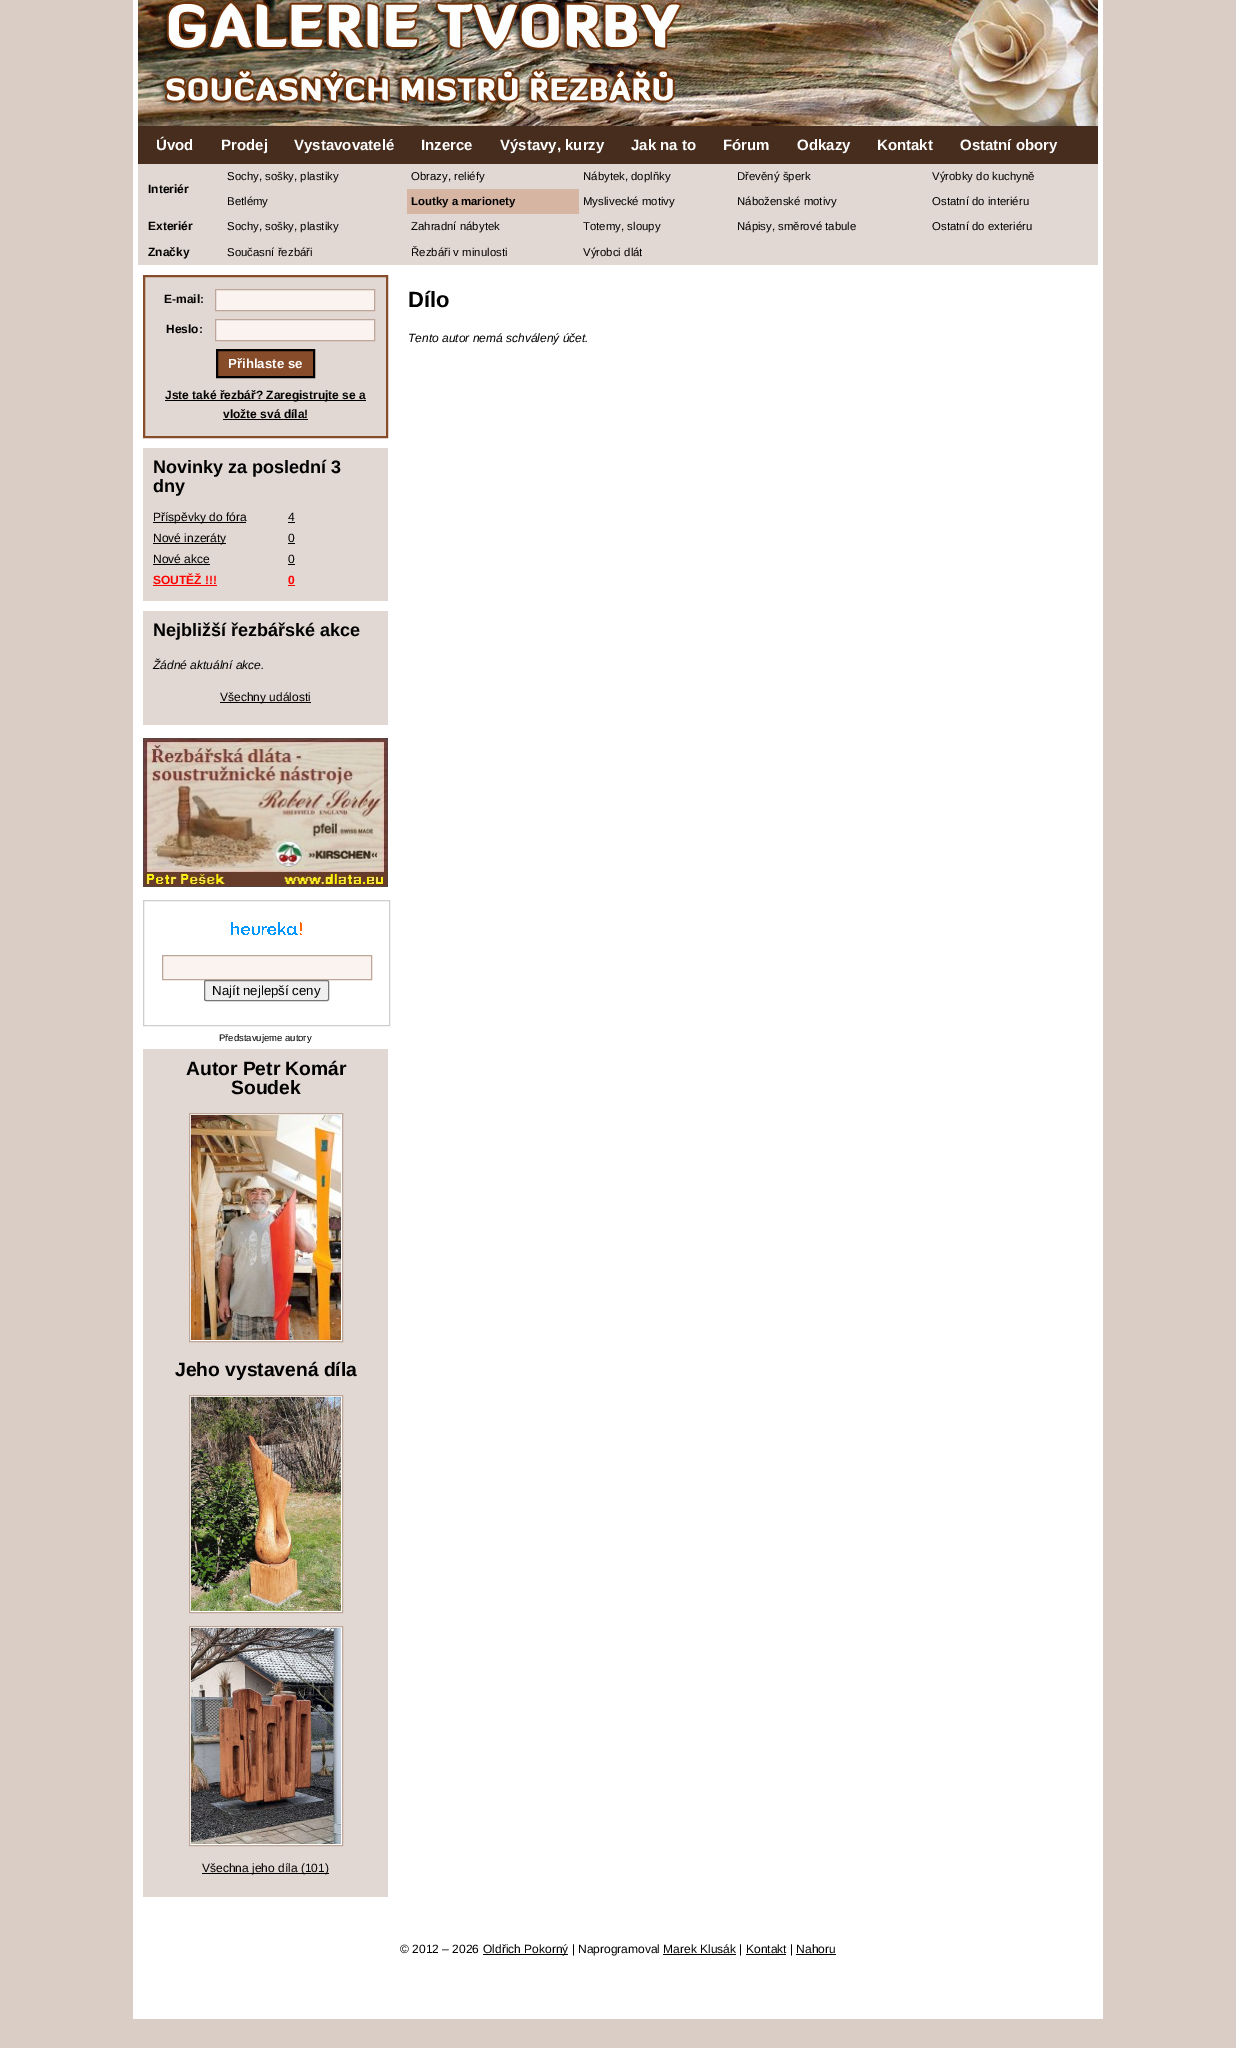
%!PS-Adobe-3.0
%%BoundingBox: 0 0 1236 2048
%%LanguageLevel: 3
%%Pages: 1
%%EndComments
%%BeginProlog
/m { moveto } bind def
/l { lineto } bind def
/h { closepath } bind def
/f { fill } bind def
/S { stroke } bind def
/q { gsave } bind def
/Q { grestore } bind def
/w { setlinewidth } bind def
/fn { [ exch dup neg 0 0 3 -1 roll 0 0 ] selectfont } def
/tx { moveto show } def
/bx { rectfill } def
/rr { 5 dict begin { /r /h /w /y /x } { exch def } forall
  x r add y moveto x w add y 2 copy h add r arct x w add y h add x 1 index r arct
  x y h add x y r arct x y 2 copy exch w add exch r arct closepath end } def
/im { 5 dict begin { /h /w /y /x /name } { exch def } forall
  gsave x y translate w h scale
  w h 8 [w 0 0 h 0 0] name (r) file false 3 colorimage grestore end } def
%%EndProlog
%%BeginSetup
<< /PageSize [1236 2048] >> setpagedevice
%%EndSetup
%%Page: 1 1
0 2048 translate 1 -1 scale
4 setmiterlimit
0.855 0.804 0.773 setrgbcolor
0 0 1236 2048 bx
1 setgray
133 0 970 2019 bx
(image0.raw) 138 0 960 126 im
0.278 0.176 0.118 setrgbcolor
138 126 960 38 bx
/LiberationSans-Bold 15 fn
1 setgray
(Úvod) 156 150 tx
(Prodej) 221 150 tx
(Vystavovatelé) 294 150 tx
(Inzerce) 421 150 tx
(Výstavy, kurzy) 500 150 tx
(Jak na to) 631 150 tx
(Fórum) 723 150 tx
(Odkazy) 797 150 tx
(Kontakt) 877 150 tx
(Ostatní obory) 960 150 tx
0.886 0.847 0.827 setrgbcolor
138 164 960 101 bx
/LiberationSans-Regular 11.4 fn
0 setgray
(Sochy, sošky, plastiky) 227 180 tx
(Obrazy, reliéfy) 411 180 tx
(Nábytek, doplňky) 583 180 tx
(Dřevěný šperk) 737 180 tx
(Výrobky do kuchyně) 932 180 tx
/LiberationSans-Bold 12 fn
(Interiér) 148 193 tx
/LiberationSans-Regular 11.4 fn
(Betlémy) 227 205 tx
0.839 0.71 0.635 setrgbcolor
407 189 172 25 bx
/LiberationSans-Bold 11.4 fn
0 setgray
(Loutky a marionety) 411 205 tx
/LiberationSans-Regular 11.4 fn
(Myslivecké motivy) 583 205 tx
(Náboženské motivy) 737 205 tx
(Ostatní do interiéru) 932 205 tx
/LiberationSans-Bold 12 fn
(Exteriér) 148 230 tx
/LiberationSans-Regular 11.4 fn
(Sochy, sošky, plastiky) 227 230 tx
(Zahradní nábytek) 411 230 tx
(Totemy, sloupy) 583 230 tx
(Nápisy, směrové tabule) 737 230 tx
(Ostatní do exteriéru) 932 230 tx
/LiberationSans-Bold 12 fn
(Značky) 148 256 tx
/LiberationSans-Regular 11.4 fn
(Současní řezbáři) 227 256 tx
(Řezbáři v minulosti) 411 256 tx
(Výrobci dlát) 583 256 tx
0.886 0.847 0.827 setrgbcolor
144 276 m 387 276 l 387 437 l 144 437 l h q f Q
0.529 0.302 0.169 setrgbcolor
2 w
S
/LiberationSans-Bold 12 fn
0 setgray
(E-mail:) 164 303 tx
0.98 0.953 0.937 setrgbcolor
215.5 289.5 m 374.5 289.5 l 374.5 310.5 l 215.5 310.5 l h q f Q
0.745 0.651 0.6 setrgbcolor
1 w
S
0 setgray
(Heslo:) 166 333 tx
0.98 0.953 0.937 setrgbcolor
215.5 319.5 m 374.5 319.5 l 374.5 340.5 l 215.5 340.5 l h q f Q
0.745 0.651 0.6 setrgbcolor
S
0.529 0.302 0.169 setrgbcolor
217 350 m 314 350 l 314 377 l 217 377 l h q f Q
0 setgray
2 w
S
/LiberationSans-Bold 13.25 fn
1 setgray
(Přihlaste se) 228 368 tx
0 setgray
165 400 201 1 bx
/LiberationSans-Bold 12 fn
(Jste také řezbář? Zaregistrujte se a) 165 399 tx
(vložte svá díla!) 223 418 tx
223 419 85 1 bx
0.886 0.847 0.827 setrgbcolor
143 448 245 153 bx
/LiberationSans-Bold 18 fn
0 setgray
(Novinky za poslední 3) 153 473 tx
(dny) 153 492 tx
153 522 93 1 bx
/LiberationSans-Regular 12 fn
(Příspěvky do fóra) 153 521 tx
(4) 288 521 tx
288 522 7 1 bx
153 543 73 1 bx
(Nové inzeráty) 153 542 tx
(0) 288 542 tx
288 543 7 1 bx
(Nové akce) 153 563 tx
153 564 57 1 bx
(0) 288 563 tx
288 564 7 1 bx
/LiberationSans-Bold 12 fn
1 0 0 setrgbcolor
(SOUTĚŽ !!!) 153 584 tx
153 585 64 1 bx
(0) 288 584 tx
288 585 7 1 bx
0.886 0.847 0.827 setrgbcolor
143 611 245 114 bx
/LiberationSans-Bold 18 fn
0 setgray
(Nejbližší řezbářské akce) 153 636 tx
/LiberationSans-Italic 12 fn
(Žádné aktuální akce.) 153 669 tx
220 702 91 1 bx
/LiberationSans-Regular 12 fn
(Všechny události) 220 701 tx
(image1.raw) 143 738 245 149 im
0.808 setgray
1 w
143.5 900.5 246 125 rectstroke
(image2.raw) 231 922 71 13 im
0.98 0.953 0.937 setrgbcolor
162.5 955.5 m 371.5 955.5 l 371.5 979.5 l 162.5 979.5 l h q f Q
0.745 0.651 0.6 setrgbcolor
S
0.937 setgray
204.5 980.5 124 20 1.5 rr q f Q
0.463 setgray
S
/LiberationSans-Regular 13.25 fn
0 setgray
(Najít nejlepší ceny) 212 995 tx
/LiberationSans-Regular 9.5 fn
(Představujeme autory) 219 1041 tx
0.886 0.847 0.827 setrgbcolor
143 1049 245 848 bx
/LiberationSans-Bold 19.25 fn
0 setgray
(Autor Petr Komár) 186 1075 tx
(Soudek) 231 1094 tx
1 setgray
189.5 1113.5 m 342.5 1113.5 l 342.5 1341.5 l 189.5 1341.5 l h q f Q
0.745 0.651 0.6 setrgbcolor
S
(image3.raw) 191 1115 150 225 im
0 setgray
(Jeho vystavená díla) 175 1376 tx
1 setgray
189.5 1395.5 m 342.5 1395.5 l 342.5 1612.5 l 189.5 1612.5 l h q f Q
0.745 0.651 0.6 setrgbcolor
S
(image4.raw) 191 1397 150 214 im
1 setgray
189.5 1626.5 m 342.5 1626.5 l 342.5 1845.5 l 189.5 1845.5 l h q f Q
0.745 0.651 0.6 setrgbcolor
S
(image5.raw) 191 1628 150 216 im
0 setgray
202 1873 127 1 bx
/LiberationSans-Regular 12 fn
(Všechna jeho díla \(101\)) 202 1872 tx
/LiberationSans-Bold 22 fn
(Dílo) 408 307 tx
/LiberationSans-Italic 12 fn
(Tento autor nemá schválený účet.) 408 342 tx
/LiberationSans-Regular 12 fn
(© 2012 – 2026) 400 1953 tx
483 1954 85 1 bx
(Oldřich Pokorný | Naprogramoval Marek Klusák | Kontakt | Nahoru) 483 1953 tx
663 1954 73 1 bx
746 1954 40 1 bx
796 1954 40 1 bx
showpage
%%EOF
